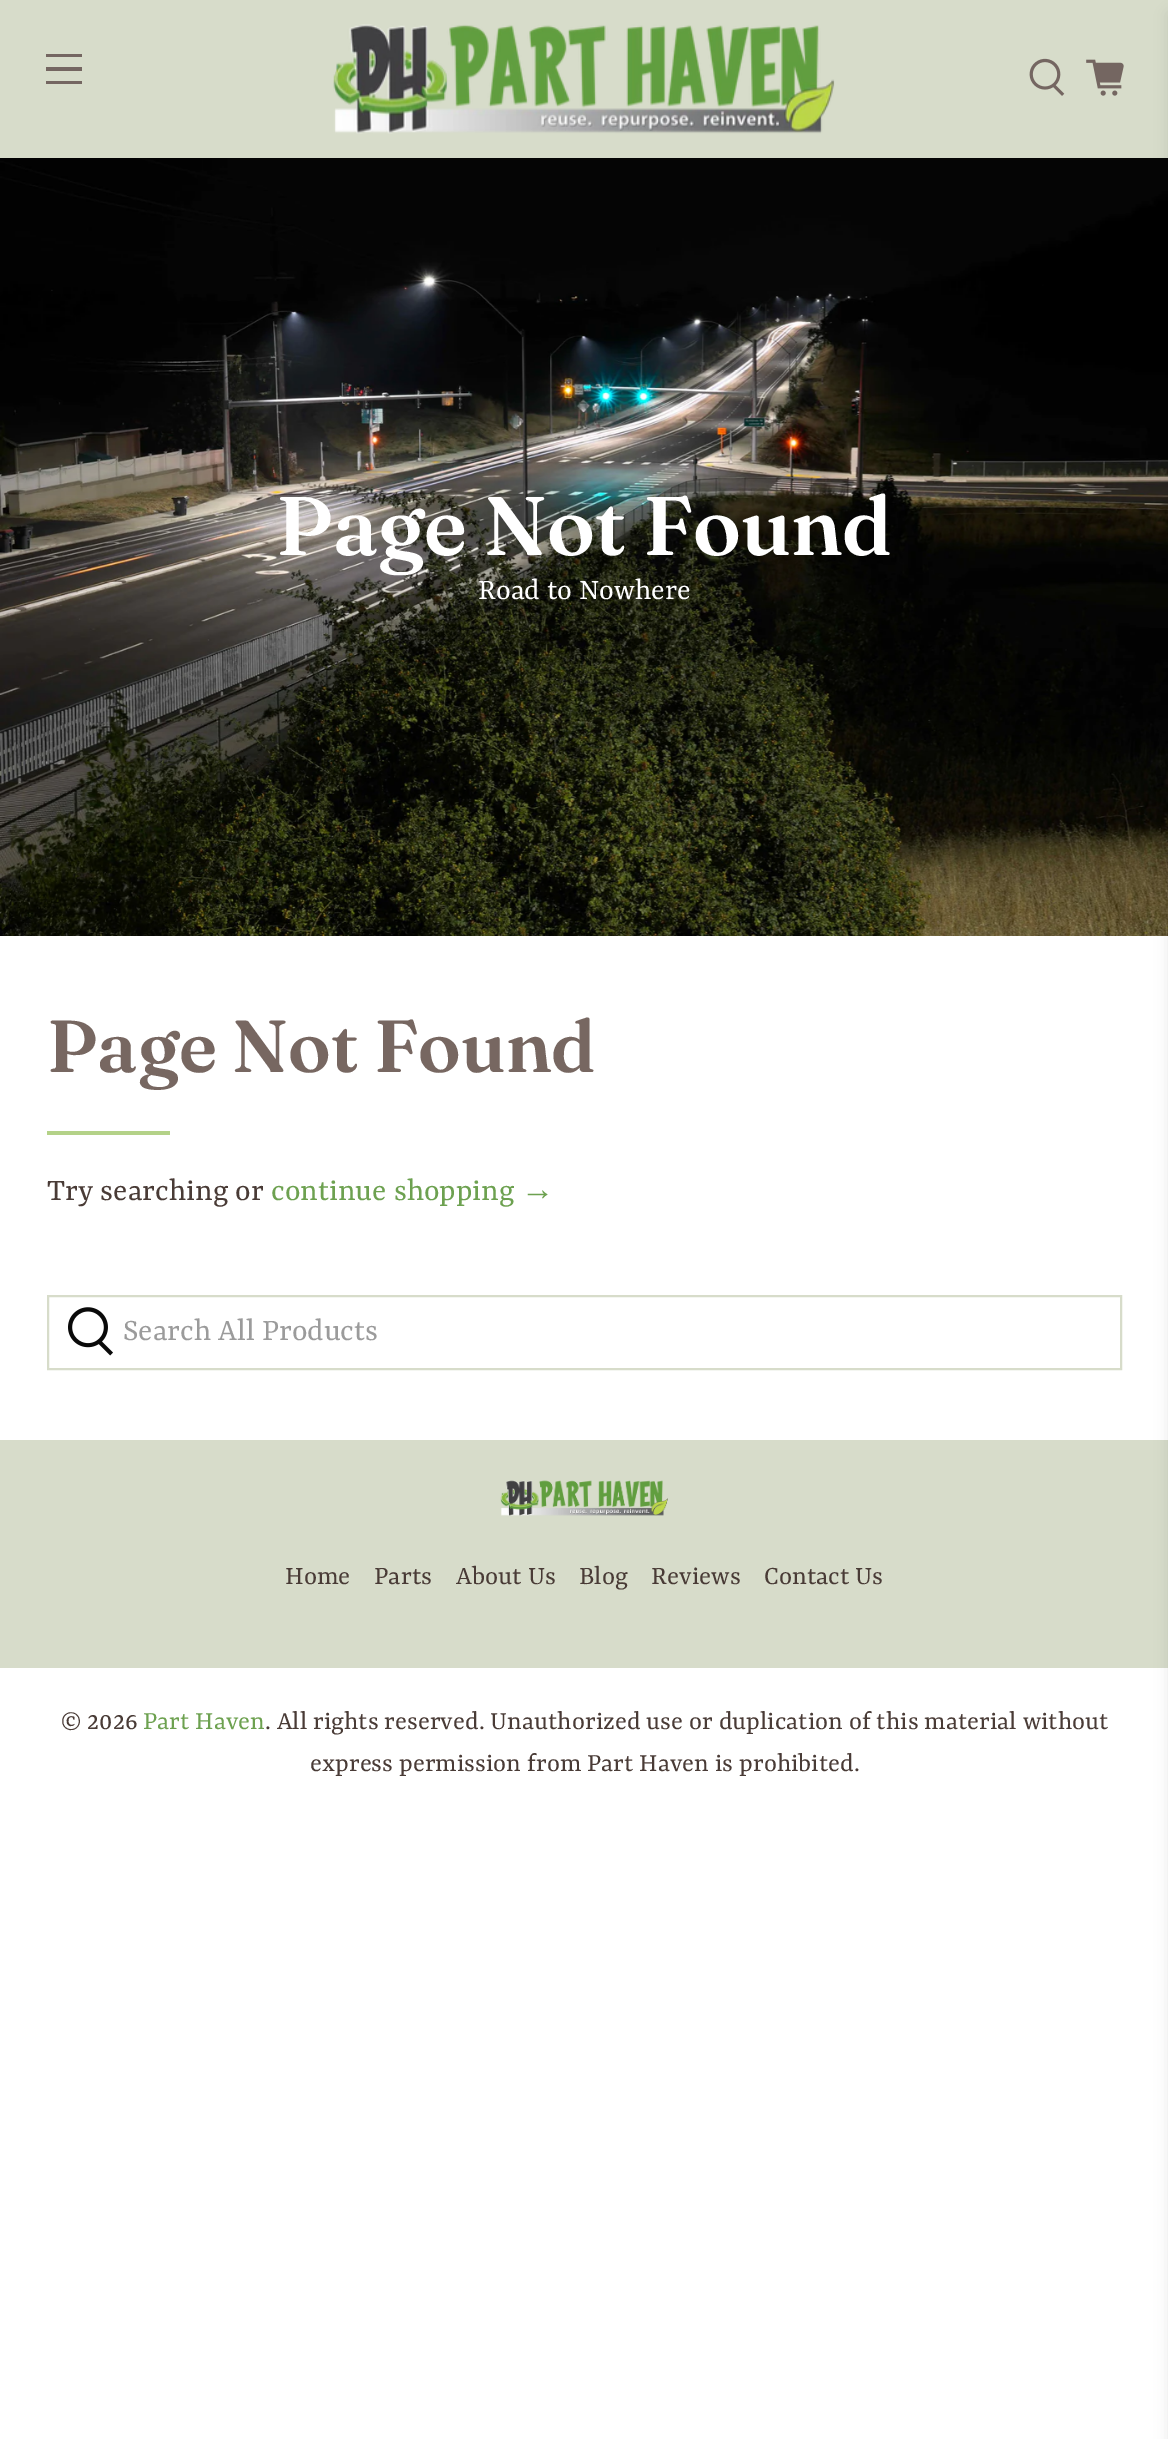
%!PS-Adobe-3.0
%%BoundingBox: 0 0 1168 2439
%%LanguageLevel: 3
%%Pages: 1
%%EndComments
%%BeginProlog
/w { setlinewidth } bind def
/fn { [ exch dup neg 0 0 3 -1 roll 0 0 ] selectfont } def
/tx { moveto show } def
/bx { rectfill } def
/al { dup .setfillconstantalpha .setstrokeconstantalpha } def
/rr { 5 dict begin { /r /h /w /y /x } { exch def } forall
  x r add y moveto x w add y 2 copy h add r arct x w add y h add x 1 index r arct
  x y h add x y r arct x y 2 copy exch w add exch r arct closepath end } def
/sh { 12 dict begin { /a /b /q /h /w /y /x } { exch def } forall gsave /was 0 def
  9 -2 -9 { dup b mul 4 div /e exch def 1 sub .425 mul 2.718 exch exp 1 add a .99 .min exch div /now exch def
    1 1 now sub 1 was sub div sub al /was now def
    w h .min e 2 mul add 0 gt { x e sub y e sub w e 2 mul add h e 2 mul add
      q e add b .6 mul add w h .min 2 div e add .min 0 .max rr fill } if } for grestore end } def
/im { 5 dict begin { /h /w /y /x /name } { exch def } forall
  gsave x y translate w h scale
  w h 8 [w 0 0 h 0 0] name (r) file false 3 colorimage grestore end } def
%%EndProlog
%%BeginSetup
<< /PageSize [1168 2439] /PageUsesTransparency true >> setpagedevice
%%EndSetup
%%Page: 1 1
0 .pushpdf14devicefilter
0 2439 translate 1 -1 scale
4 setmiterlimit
1 setgray
0 0 1168 2439 bx
0.843 0.863 0.792 setrgbcolor
0 0 1168 158 bx
0.455 0.4 0.38 setrgbcolor
46 54 36 3 bx
46 67 36 4 bx
46 81 36 3 bx
(image0.raw) 333 24 502 110 im
(image1.raw) 1029 58 36 38 im
(image2.raw) 1086 59 38 37 im
(image3.raw) 0 158 1168 778 im
0.843 0.863 0.792 setrgbcolor
0 1440 1168 228 bx
0.039 setgray
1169 14 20 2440 0 7 0.1 sh
/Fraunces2-SemiBold 83 fn
1 setgray
(Page Not Found) 276 555 tx
/Rasa-Regular 31.5 fn
(Road to Nowhere) 478 599 tx
/Fraunces-SemiBold 73.5 fn
0.467 0.404 0.38 setrgbcolor
(Page Not Found) 47 1072 tx
0.706 0.824 0.533 setrgbcolor
47 1131 123 4 bx
/Rasa-Regular 33.25 fn
0.286 0.231 0.212 setrgbcolor
(Try searching or) 47 1200 tx
0.427 0.631 0.314 setrgbcolor
(continue shopping) 271 1200 tx
/LiberationSerif-Regular 33.25 fn
(→) 521 1200 tx
0.843 0.863 0.792 setrgbcolor
2 w
48 1296 1073 73 rectstroke
(image4.raw) 68 1307 45 49 im
/Rasa-Regular 33.25 fn
0.608 setgray
(Search All Products) 123 1340 tx
(image5.raw) 500 1480 168 36 im
/Rasa-Regular 28 fn
0.286 0.231 0.212 setrgbcolor
(Home) 285 1584 tx
(Parts) 374 1584 tx
(About Us) 456 1584 tx
(Blog) 579 1584 tx
(Reviews) 651 1584 tx
(Contact Us) 764 1584 tx
/Rasa-Regular 27.7 fn
(© 2026) 61 1729 tx
0.427 0.631 0.314 setrgbcolor
(Part Haven) 143 1729 tx
0.286 0.231 0.212 setrgbcolor
(. All rights reserved. Unauthorized use or duplication of this material without) 265 1729 tx
(express permission from Part Haven is prohibited.) 310 1771 tx
.poppdf14devicefilter showpage
%%EOF
